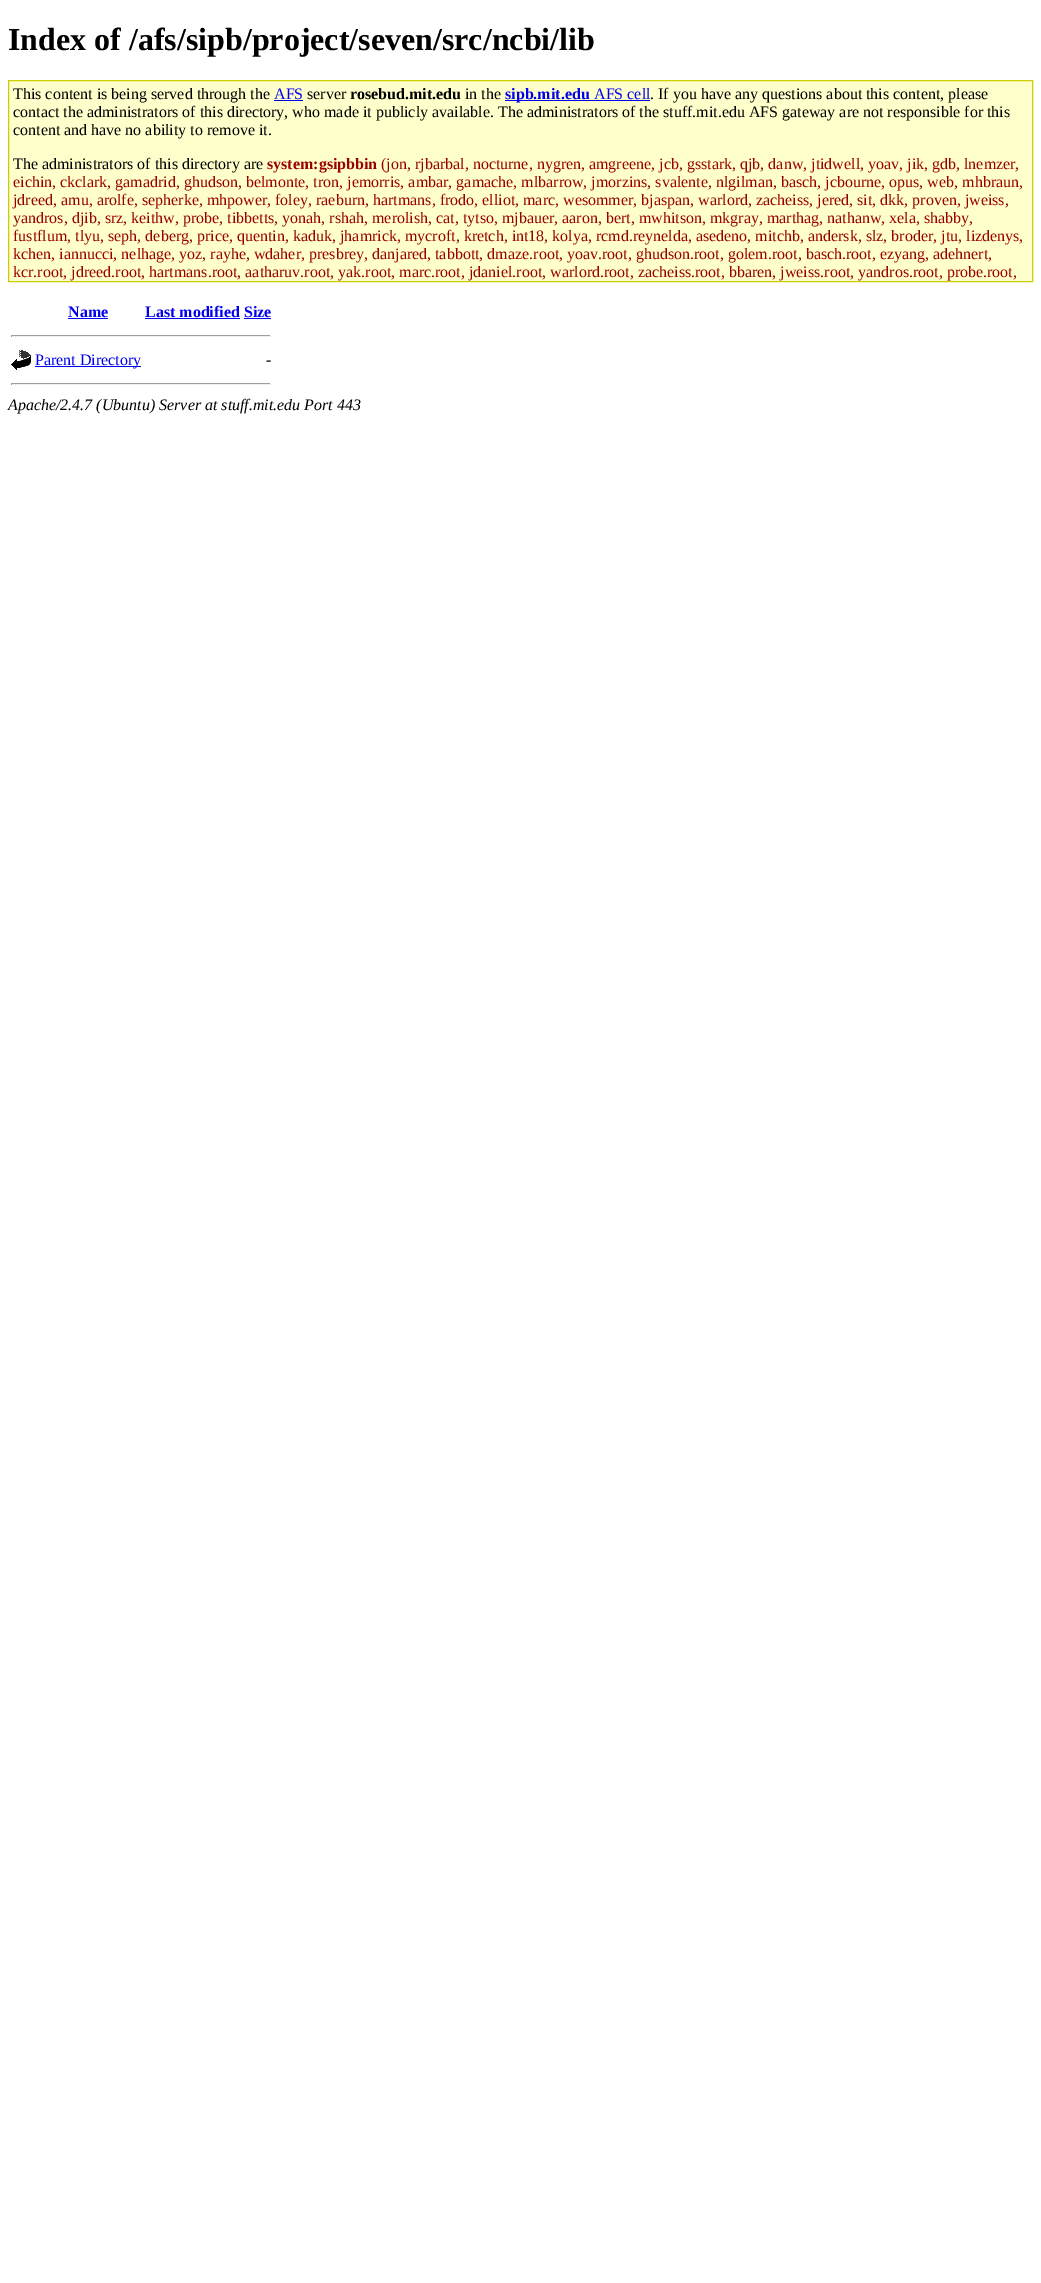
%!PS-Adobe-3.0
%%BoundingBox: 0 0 1041 2283
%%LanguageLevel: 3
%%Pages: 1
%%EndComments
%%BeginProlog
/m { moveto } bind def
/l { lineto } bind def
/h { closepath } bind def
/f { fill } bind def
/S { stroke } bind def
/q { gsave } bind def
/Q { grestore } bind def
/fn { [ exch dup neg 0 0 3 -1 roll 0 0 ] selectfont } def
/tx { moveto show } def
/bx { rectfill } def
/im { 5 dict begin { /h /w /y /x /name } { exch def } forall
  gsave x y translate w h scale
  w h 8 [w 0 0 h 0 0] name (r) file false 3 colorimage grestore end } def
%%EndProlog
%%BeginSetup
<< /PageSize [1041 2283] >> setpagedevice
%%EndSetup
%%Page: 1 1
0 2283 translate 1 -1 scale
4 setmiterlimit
1 setgray
0 0 1041 2283 bx
/LiberationSerif-Bold 32 fn
0 setgray
(Index of /afs/sipb/project/seven/src/ncbi/lib) 8 50 tx
1 1 0.8 setrgbcolor
8.5 80.5 m 1032.5 80.5 l 1032.5 281.5 l 8.5 281.5 l h q f Q
0.8 0.8 0 setrgbcolor
S
/LiberationSerif-Regular 16 fn
0 setgray
(This content is being served through the) 13 99 tx
0 0 0.933 setrgbcolor
(AFS) 274 99 tx
274 100 29 1 bx
0 setgray
(server) 307 99 tx
/LiberationSerif-Bold 16 fn
(rosebud.mit.edu) 350 99 tx
/LiberationSerif-Regular 16 fn
(in the) 465 99 tx
0 0 0.933 setrgbcolor
505 100 145 1 bx
/LiberationSerif-Bold 16 fn
(sipb.mit.edu) 505 99 tx
/LiberationSerif-Regular 16 fn
(AFS cell) 594 99 tx
0 setgray
(. If you have any questions about this content, please) 650 99 tx
(contact the administrators of this directory, who made it publicly available. The administrators of the stuff.mit.edu AFS gateway are not responsible for this) 13 117 tx
(content and have no ability to remove it.) 13 135 tx
(The administrators of this directory are) 13 169 tx
/LiberationSerif-Bold 16 fn
0.6 0 0 setrgbcolor
(system:gsipbbin) 267 169 tx
/LiberationSerif-Regular 16 fn
(\(jon, rjbarbal, nocturne, nygren, amgreene, jcb, gsstark, qjb, danw, jtidwell, yoav, jik, gdb, lnemzer,) 381 169 tx
(eichin, ckclark, gamadrid, ghudson, belmonte, tron, jemorris, ambar, gamache, mlbarrow, jmorzins, svalente, nlgilman, basch, jcbourne, opus, web, mhbraun,) 13 187 tx
(jdreed, amu, arolfe, sepherke, mhpower, foley, raeburn, hartmans, frodo, elliot, marc, wesommer, bjaspan, warlord, zacheiss, jered, sit, dkk, proven, jweiss,) 13 205 tx
(yandros, djib, srz, keithw, probe, tibbetts, yonah, rshah, merolish, cat, tytso, mjbauer, aaron, bert, mwhitson, mkgray, marthag, nathanw, xela, shabby,) 13 223 tx
(fustflum, tlyu, seph, deberg, price, quentin, kaduk, jhamrick, mycroft, kretch, int18, kolya, rcmd.reynelda, asedeno, mitchb, andersk, slz, broder, jtu, lizdenys,) 13 241 tx
(kchen, iannucci, nelhage, yoz, rayhe, wdaher, presbrey, danjared, tabbott, dmaze.root, yoav.root, ghudson.root, golem.root, basch.root, ezyang, adehnert,) 13 259 tx
(kcr.root, jdreed.root, hartmans.root, aatharuv.root, yak.root, marc.root, jdaniel.root, warlord.root, zacheiss.root, bbaren, jweiss.root, yandros.root, probe.root,) 13 277 tx
/LiberationSerif-Bold 16 fn
0 0 0.933 setrgbcolor
(Name) 68 317 tx
68 318 40 1 bx
(Last modified Size) 145 317 tx
145 318 95 1 bx
244 318 27 1 bx
0.624 setgray
11 335 260 1 bx
0.933 setgray
270 335 1 2 bx
11 336 260 1 bx
0.624 setgray
11 335 1 2 bx
(image0.raw) 11 350 20 20 im
0 0 0.933 setrgbcolor
35 366 106 1 bx
/LiberationSerif-Regular 16 fn
(Parent Directory) 35 365 tx
0 setgray
(-) 266 365 tx
0.624 setgray
11 383 260 1 bx
0.933 setgray
270 383 1 2 bx
11 384 260 1 bx
0.624 setgray
11 383 1 2 bx
/LiberationSerif-Italic 16 fn
0 setgray
(Apache/2.4.7 \(Ubuntu\) Server at stuff.mit.edu Port 443) 8 410 tx
showpage
%%EOF
